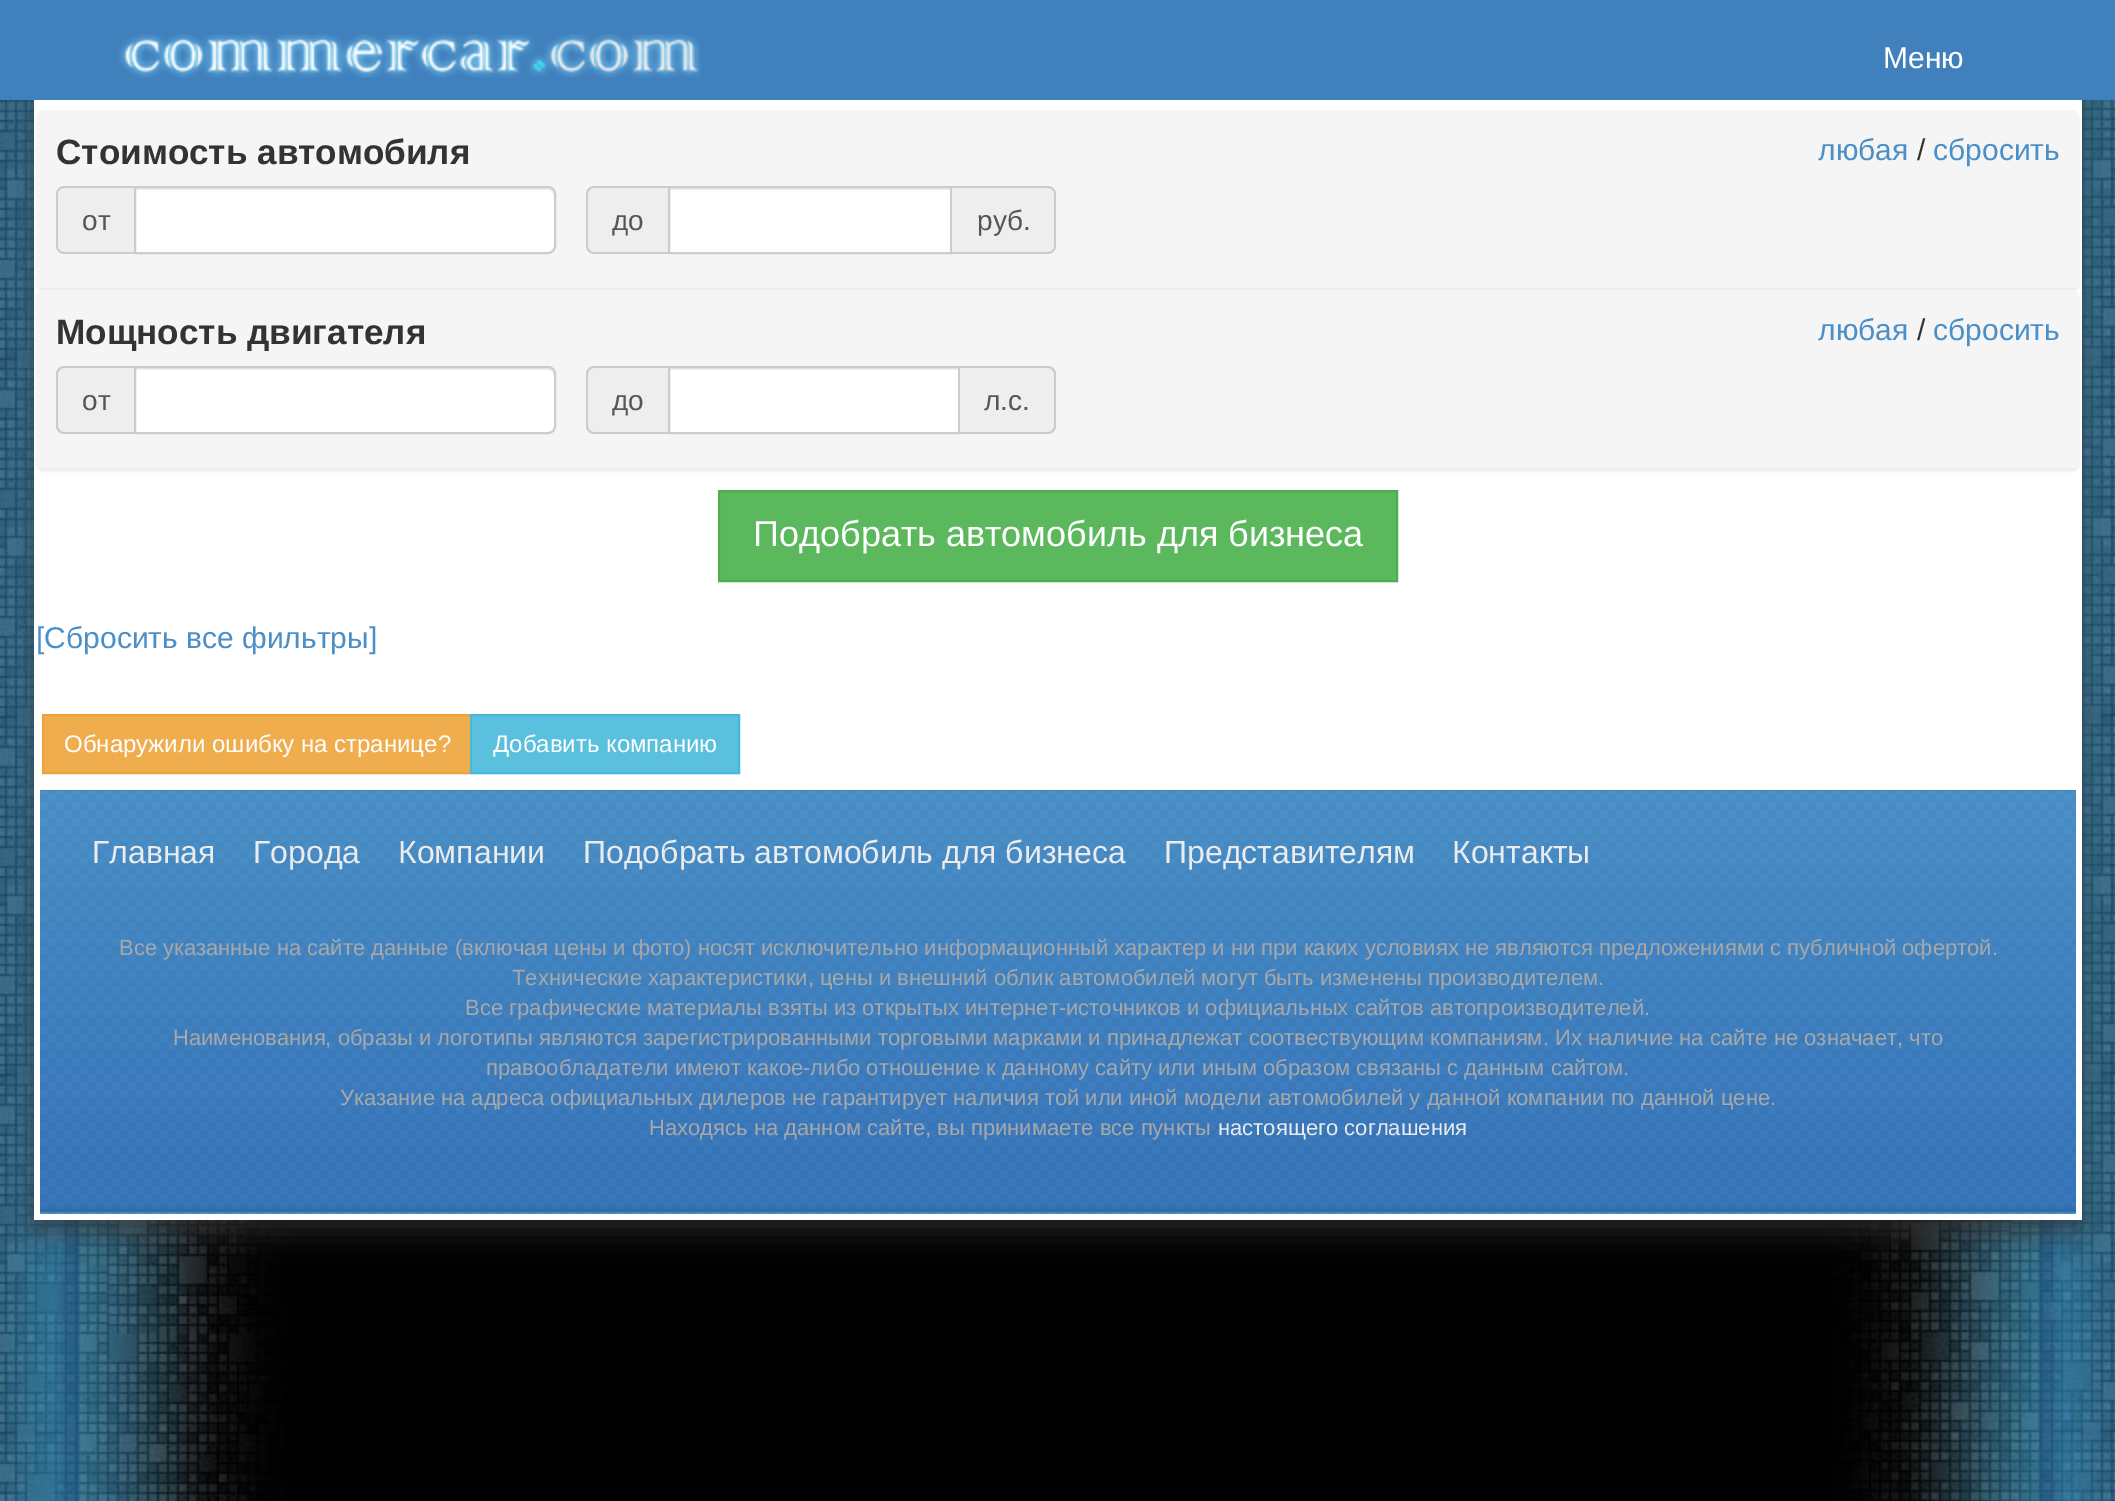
%!PS-Adobe-3.0
%%BoundingBox: 0 0 2115 1501
%%LanguageLevel: 3
%%Pages: 1
%%EndComments
%%BeginProlog
/m { moveto } bind def
/l { lineto } bind def
/c { curveto } bind def
/h { closepath } bind def
/f { fill } bind def
/S { stroke } bind def
/q { gsave } bind def
/Q { grestore } bind def
/w { setlinewidth } bind def
/fn { [ exch dup neg 0 0 3 -1 roll 0 0 ] selectfont } def
/tx { moveto show } def
/bx { rectfill } def
/al { dup .setfillconstantalpha .setstrokeconstantalpha } def
/rr { 5 dict begin { /r /h /w /y /x } { exch def } forall
  x r add y moveto x w add y 2 copy h add r arct x w add y h add x 1 index r arct
  x y h add x y r arct x y 2 copy exch w add exch r arct closepath end } def
/sh { 12 dict begin { /a /b /q /h /w /y /x } { exch def } forall gsave /was 0 def
  9 -2 -9 { dup b mul 4 div /e exch def 1 sub .425 mul 2.718 exch exp 1 add a .99 .min exch div /now exch def
    1 1 now sub 1 was sub div sub al /was now def
    w h .min e 2 mul add 0 gt { x e sub y e sub w e 2 mul add h e 2 mul add
      q e add b .6 mul add w h .min 2 div e add .min 0 .max rr fill } if } for grestore end } def
/im { 5 dict begin { /h /w /y /x /name } { exch def } forall
  gsave x y translate w h scale
  w h 8 [w 0 0 h 0 0] name (r) file false 3 colorimage grestore end } def
%%EndProlog
%%BeginSetup
<< /PageSize [2115 1501] /PageUsesTransparency true >> setpagedevice
%%EndSetup
%%Page: 1 1
0 .pushpdf14devicefilter
0 1501 translate 1 -1 scale
4 setmiterlimit
1 setgray
0 0 2115 1501 bx
(image0.raw) 0 100 2115 1401 im
0.196 setgray
34 12 2048 1220 0 15 0.75 sh
0.251 0.506 0.741 setrgbcolor
0 0 2115 100 bx
(image1.raw) 119 34 582 44 im
/LiberationSans-Regular 30 fn
1 setgray
(Меню) 1883 68 tx
34 100 2048 690 bx
0 setgray
36 112 2044 180 8 1 0.05 sh
0.961 setgray
36 110 2044 180 8 rr f
0.929 setgray
40 288 2036 2 bx
/LiberationSans-Bold 35.1 fn
0.2 setgray
(Стоимость автомобиля) 56 164 tx
/LiberationSans-Regular 30 fn
0.29 0.561 0.784 setrgbcolor
(любая) 1818 160 tx
0.2 setgray
(/) 1917 160 tx
0.29 0.561 0.784 setrgbcolor
(сбросить) 1933 160 tx
0.933 setgray
64 186 m 134 186 l 134 254 l 64 254 l 59.5 254 56 250.5 56 246 c 56 194 l 56 189.5 59.5 186 64 186 c h f
0.8 setgray
64 186 m 134 186 l 134 254 l 64 254 l 60 254 56 250 56 246 c 56 194 l 56 190 60 186 64 186 c h 64 188 m 134 188 l 134 252 l 64 252 l 61 252 58 249 58 246 c 58 194 l 58 191 61 188 64 188 c h eofill
/LiberationSans-Regular 28 fn
0.333 setgray
(от) 82 230 tx
1 setgray
134 186 m 548 186 l 552.5 186 556 189.5 556 194 c 556 246 l 556 250.5 552.5 254 548 254 c 134 254 l h f
0.925 setgray
136 190 m 548 190 l 551 190 554 193 554 196 c 554 194 l 554 191 551 188 548 188 c 136 188 l h f
0.8 setgray
2 w
135 187 m 548 187 l 552 187 555 190 555 194 c 555 246 l 555 250 552 253 548 253 c 135 253 l h S
0.933 setgray
594 186 m 668 186 l 668 254 l 594 254 l 589.5 254 586 250.5 586 246 c 586 194 l 586 189.5 589.5 186 594 186 c h f
0.8 setgray
594 186 m 668 186 l 668 254 l 594 254 l 590 254 586 250 586 246 c 586 194 l 586 190 590 186 594 186 c h 594 188 m 668 188 l 668 252 l 594 252 l 591 252 588 249 588 246 c 588 194 l 588 191 591 188 594 188 c h eofill
0.333 setgray
(до) 612 230 tx
1 setgray
670 190 280 62 bx
0.925 setgray
670 188 280 2 bx
0.8 setgray
669 187 282 66 rectstroke
0.933 setgray
952 186 m 1048 186 l 1052.5 186 1056 189.5 1056 194 c 1056 246 l 1056 250.5 1052.5 254 1048 254 c 952 254 l h f
0.8 setgray
952 186 m 1048 186 l 1052 186 1056 190 1056 194 c 1056 246 l 1056 250 1052 254 1048 254 c 952 254 l h 952 188 m 1048 188 l 1051 188 1054 191 1054 194 c 1054 246 l 1054 249 1051 252 1048 252 c 952 252 l h eofill
0.333 setgray
(руб.) 977 230 tx
0 setgray
36 292 2044 180 8 1 0.05 sh
0.961 setgray
36 290 2044 180 8 rr f
0.929 setgray
40 468 2036 2 bx
/LiberationSans-Bold 35.1 fn
0.2 setgray
(Мощность двигателя) 56 344 tx
/LiberationSans-Regular 30 fn
0.29 0.561 0.784 setrgbcolor
(любая) 1818 340 tx
0.2 setgray
(/) 1917 340 tx
0.29 0.561 0.784 setrgbcolor
(сбросить) 1933 340 tx
0.933 setgray
64 366 m 134 366 l 134 434 l 64 434 l 59.5 434 56 430.5 56 426 c 56 374 l 56 369.5 59.5 366 64 366 c h f
0.8 setgray
64 366 m 134 366 l 134 434 l 64 434 l 60 434 56 430 56 426 c 56 374 l 56 370 60 366 64 366 c h 64 368 m 134 368 l 134 432 l 64 432 l 61 432 58 429 58 426 c 58 374 l 58 371 61 368 64 368 c h eofill
/LiberationSans-Regular 28 fn
0.333 setgray
(от) 82 410 tx
1 setgray
134 366 m 548 366 l 552.5 366 556 369.5 556 374 c 556 426 l 556 430.5 552.5 434 548 434 c 134 434 l h f
0.925 setgray
136 370 m 548 370 l 551 370 554 373 554 376 c 554 374 l 554 371 551 368 548 368 c 136 368 l h f
0.8 setgray
135 367 m 548 367 l 552 367 555 370 555 374 c 555 426 l 555 430 552 433 548 433 c 135 433 l h S
0.933 setgray
594 366 m 668 366 l 668 434 l 594 434 l 589.5 434 586 430.5 586 426 c 586 374 l 586 369.5 589.5 366 594 366 c h f
0.8 setgray
594 366 m 668 366 l 668 434 l 594 434 l 590 434 586 430 586 426 c 586 374 l 586 370 590 366 594 366 c h 594 368 m 668 368 l 668 432 l 594 432 l 591 432 588 429 588 426 c 588 374 l 588 371 591 368 594 368 c h eofill
0.333 setgray
(до) 612 410 tx
1 setgray
670 370 288 62 bx
0.925 setgray
670 368 288 2 bx
0.8 setgray
669 367 290 66 rectstroke
0.933 setgray
960 366 m 1048 366 l 1052.5 366 1056 369.5 1056 374 c 1056 426 l 1056 430.5 1052.5 434 1048 434 c 960 434 l h f
0.8 setgray
960 366 m 1048 366 l 1052 366 1056 370 1056 374 c 1056 426 l 1056 430 1052 434 1048 434 c 960 434 l h 960 368 m 1048 368 l 1051 368 1054 371 1054 374 c 1054 426 l 1054 429 1051 432 1048 432 c 960 432 l h eofill
0.333 setgray
(л.с.) 984 410 tx
0.361 0.722 0.361 setrgbcolor
719 491 m 1397 491 l 1397 581 l 719 581 l h q f Q
0.298 0.682 0.298 setrgbcolor
S
/LiberationSans-Regular 36 fn
1 setgray
(Подобрать автомобиль для бизнеса) 753 546 tx
/LiberationSans-Regular 30 fn
0.29 0.561 0.784 setrgbcolor
([Сбросить все фильтры]) 36 648 tx
0.941 0.678 0.306 setrgbcolor
43 715 m 471 715 l 471 773 l 43 773 l h q f Q
0.933 0.635 0.212 setrgbcolor
S
/LiberationSans-Regular 24 fn
1 setgray
(Обнаружили ошибку на странице?) 64 752 tx
0.357 0.753 0.871 setrgbcolor
471 715 m 739 715 l 739 773 l 471 773 l h q f Q
0.275 0.722 0.855 setrgbcolor
S
1 setgray
(Добавить компанию) 493 752 tx
(image2.raw) 40 790 2036 424 im
2076 790 6 430 bx
34 1214 2048 6 bx
34 790 6 430 bx
/LiberationSans-Regular 32 fn
0.922 setgray
(Главная) 92 863 tx
(Города) 253 863 tx
(Компании) 398 863 tx
(Подобрать автомобиль для бизнеса) 583 863 tx
(Представителям) 1164 863 tx
(Контакты) 1452 863 tx
/LiberationSans-Regular 22 fn
0.659 setgray
(Все указанные на сайте данные \(включая цены и фото\) носят исключительно информационный характер и ни при каких условиях не являются предложениями с публичной офертой.) 119 955 tx
(Технические характеристики, цены и внешний облик автомобилей могут быть изменены производителем.) 512 985 tx
(Все графические материалы взяты из открытых интернет-источников и официальных сайтов автопроизводителей.) 465 1015 tx
(Наименования, образы и логотипы являются зарегистрированными торговыми марками и принадлежат соотвествующим компаниям. Их наличие на сайте не означает, что) 173 1045 tx
(правообладатели имеют какое-либо отношение к данному сайту или иным образом связаны с данным сайтом.) 486 1075 tx
(Указание на адреса официальных дилеров не гарантирует наличия той или иной модели автомобилей у данной компании по данной цене.) 340 1105 tx
(Находясь на данном сайте, вы принимаете все пункты) 649 1135 tx
0.922 setgray
(настоящего соглашения) 1218 1135 tx
.poppdf14devicefilter showpage
%%EOF
